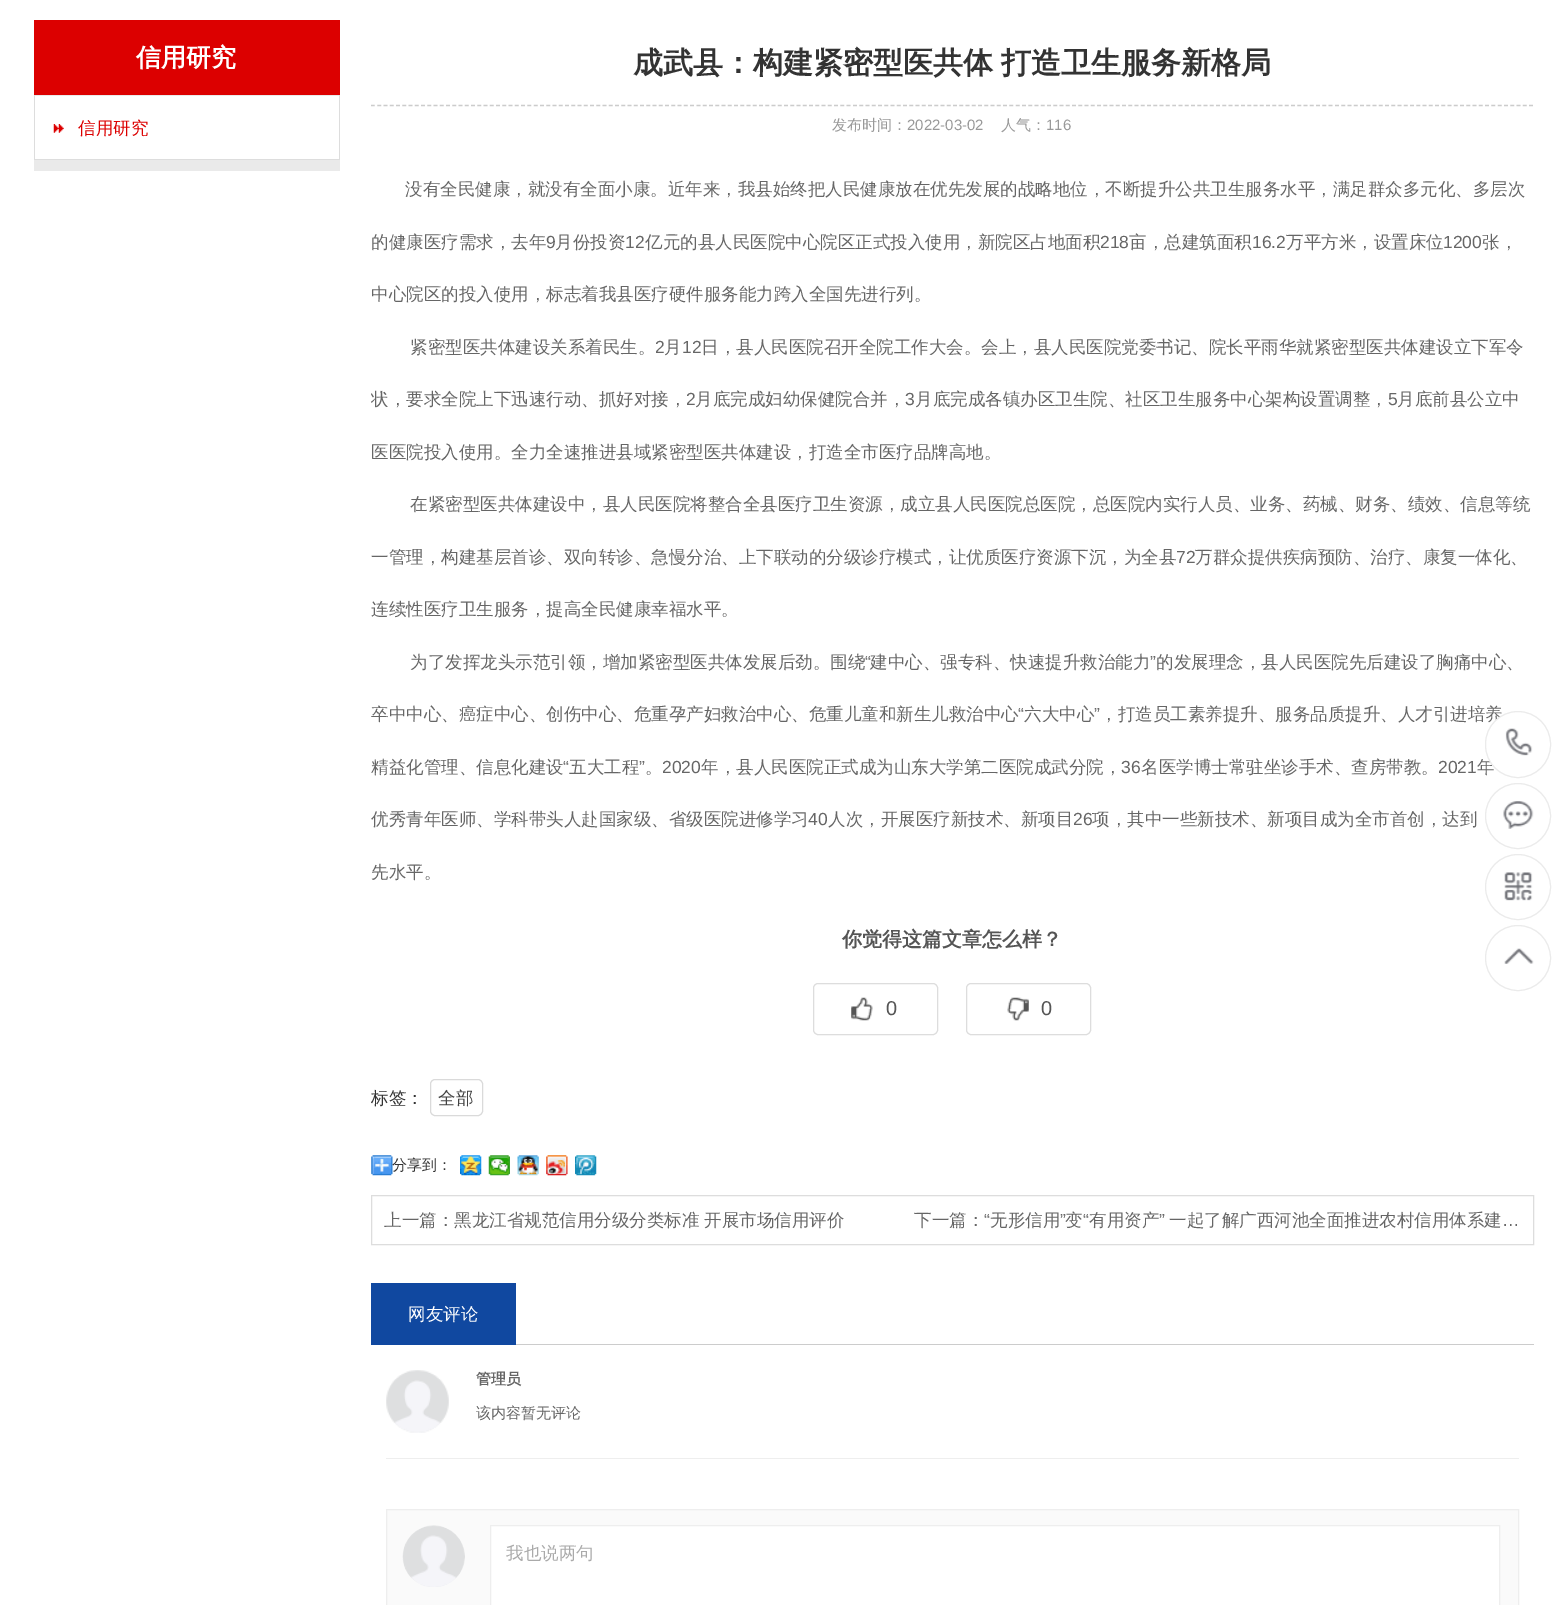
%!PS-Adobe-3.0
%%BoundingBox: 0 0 1566 1605
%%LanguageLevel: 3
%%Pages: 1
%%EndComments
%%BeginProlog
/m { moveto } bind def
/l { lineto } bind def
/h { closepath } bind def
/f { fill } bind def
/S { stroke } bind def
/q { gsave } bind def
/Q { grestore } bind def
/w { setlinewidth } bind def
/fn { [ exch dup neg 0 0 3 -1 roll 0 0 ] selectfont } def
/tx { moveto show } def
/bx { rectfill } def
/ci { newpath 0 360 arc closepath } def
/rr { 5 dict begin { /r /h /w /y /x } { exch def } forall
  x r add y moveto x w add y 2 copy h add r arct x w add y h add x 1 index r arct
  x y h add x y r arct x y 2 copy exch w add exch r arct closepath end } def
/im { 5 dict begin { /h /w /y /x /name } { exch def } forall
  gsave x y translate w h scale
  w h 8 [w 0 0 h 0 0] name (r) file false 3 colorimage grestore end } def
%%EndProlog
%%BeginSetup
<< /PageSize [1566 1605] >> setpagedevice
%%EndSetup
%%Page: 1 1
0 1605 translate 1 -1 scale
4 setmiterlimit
1 setgray
0 0 1566 1605 bx
0.918 setgray
34 160 306 11 bx
0.863 0 0 setrgbcolor
34 20 306 75 bx
/WenQuanYiZenHei-Bold 25 fn
1 setgray
(信用研究) 136 66 tx
0.867 setgray
339 95 1 65 bx
34 159 306 1 bx
34 95 1 65 bx
(image0.raw) 53 124 11 9 im
0.918 setgray
35 95 304 1 bx
/WenQuanYiZenHei-Medium 17.5 fn
0.863 0 0 setrgbcolor
(信用研究) 78 134 tx
0.8 setgray
1.2 w
[3.75 2.51] 0 setdash
371 105.5 m 1534 105.5 l S
/WenQuanYiZenHei-Bold 30 fn
0.2 setgray
633 73 m -1 0 32 (成武县：构建紧密型医共体 打造卫生服务新格局) widthshow
/WenQuanYiZenHei-Medium 15 fn
0.6 setgray
(发布时间：) 832 130 tx
/LiberationSans-Regular 15 fn
(2022-03-02) 907 130 tx
/WenQuanYiZenHei-Medium 15 fn
(人气：) 1001 130 tx
/LiberationSans-Regular 15 fn
(116) 1046 130 tx
/WenQuanYiZenHei-Medium 17.5 fn
0.4 setgray
(没有全民健康，就没有全面小康。近年来，我县始终把人民健康放在优先发展的战略地位，不断提升公共卫生服务水平，满足群众多元化、多层次) 405 195 tx
(的健康医疗需求，去年) 371 248 tx
/LiberationSans-Regular 17.5 fn
(9) 546 248 tx
/WenQuanYiZenHei-Medium 17.5 fn
(月份投资) 555 248 tx
/LiberationSans-Regular 17.5 fn
(12) 625 248 tx
/WenQuanYiZenHei-Medium 17.5 fn
(亿元的县人民医院中心院区正式投入使用，新院区占地面积) 645 248 tx
/LiberationSans-Regular 17.5 fn
(218) 1100 248 tx
/WenQuanYiZenHei-Medium 17.5 fn
(亩，总建筑面积) 1129 248 tx
/LiberationSans-Regular 17.5 fn
(16.2) 1252 248 tx
/WenQuanYiZenHei-Medium 17.5 fn
(万平方米，设置床位) 1286 248 tx
/LiberationSans-Regular 17.5 fn
(1200) 1443 248 tx
/WenQuanYiZenHei-Medium 17.5 fn
(张，) 1482 248 tx
(中心院区的投入使用，标志着我县医疗硬件服务能力跨入全国先进行列。) 371 300 tx
(紧密型医共体建设关系着民生。) 410 353 tx
/LiberationSans-Regular 17.5 fn
(2) 655 353 tx
/WenQuanYiZenHei-Medium 17.5 fn
(月) 664 353 tx
/LiberationSans-Regular 17.5 fn
(12) 682 353 tx
/WenQuanYiZenHei-Medium 17.5 fn
(日，县人民医院召开全院工作大会。会上，县人民医院党委书记、院长平雨华就紧密型医共体建设立下军令) 701 353 tx
q
371 156 1163 767 rectclip
(状，要求全院上下迅速行动、抓好对接，) 371 405 tx
Q
/LiberationSans-Regular 17.5 fn
(2) 686 405 tx
/WenQuanYiZenHei-Medium 17.5 fn
(月底完成妇幼保健院合并，) 695 405 tx
/LiberationSans-Regular 17.5 fn
(3) 905 405 tx
/WenQuanYiZenHei-Medium 17.5 fn
(月底完成各镇办区卫生院、社区卫生服务中心架构设置调整，) 915 405 tx
/LiberationSans-Regular 17.5 fn
(5) 1388 405 tx
/WenQuanYiZenHei-Medium 17.5 fn
(月底前县公立中) 1397 405 tx
(医医院投入使用。全力全速推进县域紧密型医共体建设，打造全市医疗品牌高地。) 371 458 tx
(在紧密型医共体建设中，县人民医院将整合全县医疗卫生资源，成立县人民医院总医院，总医院内实行人员、业务、药械、财务、绩效、信息等统) 410 510 tx
(一管理，构建基层首诊、双向转诊、急慢分治、上下联动的分级诊疗模式，让优质医疗资源下沉，为全县) 371 563 tx
/LiberationSans-Regular 17.5 fn
(72) 1176 563 tx
/WenQuanYiZenHei-Medium 17.5 fn
(万群众提供疾病预防、治疗、康复一体化、) 1195 563 tx
(连续性医疗卫生服务，提高全民健康幸福水平。) 371 615 tx
(为了发挥龙头示范引领，增加紧密型医共体发展后劲。围绕) 410 668 tx
/LiberationSans-Regular 17.5 fn
(“) 865 668 tx
/WenQuanYiZenHei-Medium 17.5 fn
(建中心、强专科、快速提升救治能力) 870 668 tx
/LiberationSans-Regular 17.5 fn
(”) 1150 668 tx
/WenQuanYiZenHei-Medium 17.5 fn
(的发展理念，县人民医院先后建设了胸痛中心、) 1156 668 tx
(卒中中心、癌症中心、创伤中心、危重孕产妇救治中心、危重儿童和新生儿救治中心) 371 720 tx
/LiberationSans-Regular 17.5 fn
(“) 1018 720 tx
/WenQuanYiZenHei-Medium 17.5 fn
(六大中心) 1024 720 tx
/LiberationSans-Regular 17.5 fn
(”) 1094 720 tx
/WenQuanYiZenHei-Medium 17.5 fn
(，打造员工素养提升、服务品质提升、人才引进培养) 1100 720 tx
(精益化管理、信息化建设) 371 773 tx
/LiberationSans-Regular 17.5 fn
(“) 563 773 tx
/WenQuanYiZenHei-Medium 17.5 fn
(五大工程) 569 773 tx
/LiberationSans-Regular 17.5 fn
(”) 639 773 tx
/WenQuanYiZenHei-Medium 17.5 fn
(。) 645 773 tx
/LiberationSans-Regular 17.5 fn
(2020) 662 773 tx
/WenQuanYiZenHei-Medium 17.5 fn
(年，县人民医院正式成为山东大学第二医院成武分院，) 701 773 tx
/LiberationSans-Regular 17.5 fn
(36) 1121 773 tx
/WenQuanYiZenHei-Medium 17.5 fn
(名医学博士常驻坐诊手术、查房带教。) 1141 773 tx
/LiberationSans-Regular 17.5 fn
(2021) 1438 773 tx
/WenQuanYiZenHei-Medium 17.5 fn
(年) 1477 773 tx
(优秀青年医师、学科带头人赴国家级、省级医院进修学习) 371 825 tx
/LiberationSans-Regular 17.5 fn
(40) 808 825 tx
/WenQuanYiZenHei-Medium 17.5 fn
(人次，开展医疗新技术、新项目) 828 825 tx
/LiberationSans-Regular 17.5 fn
(26) 1073 825 tx
/WenQuanYiZenHei-Medium 17.5 fn
(项，其中一些新技术、新项目成为全市首创，达到) 1092 825 tx
(先水平。) 371 878 tx
/WenQuanYiZenHei-Bold 20 fn
0.333 setgray
(你觉得这篇文章怎么样？) 842 946 tx
0.867 setgray
1 w
[] 0 setdash
813.5 983.5 124 51 4.5 rr S
(image1.raw) 851 997 22 24 im
/LiberationSans-Regular 20 fn
0.333 setgray
(0) 886 1015 tx
0.867 setgray
966.5 983.5 124 51 4.5 rr S
(image2.raw) 1007 997 22 24 im
0.333 setgray
(0) 1041 1015 tx
/WenQuanYiZenHei-Medium 17.5 fn
0.2 setgray
(标签：) 371 1104 tx
0.855 setgray
430.5 1079.5 52 36 4.5 rr S
0.263 setgray
(全部) 438 1104 tx
(image3.raw) 371 1155 22 21 im
/WenQuanYiZenHei-Medium 15 fn
0.2 setgray
(分享到：) 392 1170 tx
(image4.raw) 460 1155 22 21 im
(image5.raw) 488 1155 22 21 im
(image6.raw) 517 1155 22 21 im
(image7.raw) 546 1155 22 21 im
(image8.raw) 575 1155 22 21 im
0.867 setgray
371.5 1195.5 1162 49 rectstroke
/WenQuanYiZenHei-Medium 17.5 fn
0.4 setgray
(上一篇：) 384 1226 tx
(黑龙江省规范信用分级分类标准 开展市场信用评价) 454 1226 tx
(下一篇：) 914 1226 tx
/LiberationSans-Regular 17.5 fn
(“) 984 1226 tx
/WenQuanYiZenHei-Medium 17.5 fn
(无形信用) 990 1226 tx
/LiberationSans-Regular 17.5 fn
(”) 1060 1226 tx
/WenQuanYiZenHei-Medium 17.5 fn
(变) 1065 1226 tx
/LiberationSans-Regular 17.5 fn
(“) 1083 1226 tx
/WenQuanYiZenHei-Medium 17.5 fn
(有用资产) 1089 1226 tx
/LiberationSans-Regular 17.5 fn
(”) 1159 1226 tx
/WenQuanYiZenHei-Medium 17.5 fn
(一起了解广西河池全面推进农村信用体系建) 1169 1226 tx
/LiberationSans-Regular 17.5 fn
(…) 1502 1226 tx
0.8 setgray
516 1344 1018 1 bx
0.063 0.282 0.627 setrgbcolor
371 1283 145 62 bx
/WenQuanYiZenHei-Medium 17.5 fn
1 setgray
(网友评论) 408 1320 tx
0.933 setgray
386 1458 1133 1 bx
(image9.raw) 386 1370 63 63 im
/WenQuanYiZenHei-Bold 15 fn
0.4 setgray
(管理员) 476 1384 tx
/WenQuanYiZenHei-Medium 15 fn
(该内容暂无评论) 476 1418 tx
0.98 setgray
386.5 1509.5 m 1518.5 1509.5 l 1518.5 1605.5 l 386.5 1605.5 l h q f Q
0.933 setgray
S
(image10.raw) 402 1525 63 62 im
1 setgray
490.5 1525.5 m 1499.5 1525.5 l 1499.5 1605.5 l 490.5 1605.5 l h q f Q
0.933 setgray
S
/WenQuanYiZenHei-Medium 17.5 fn
0.667 setgray
(我也说两句) 506 1559 tx
1 setgray
1485.5 711.5 65 66 32.5 rr q f Q
0.922 setgray
S
(image11.raw) 1505 728 28 28 im
1518 816 32.5 ci S
(image12.raw) 1503 801 31 28 im
1518 887 32.5 ci S
(image13.raw) 1504 872 29 29 im
1518 958 32.5 ci S
(image14.raw) 1504 948 30 16 im
showpage
%%EOF
